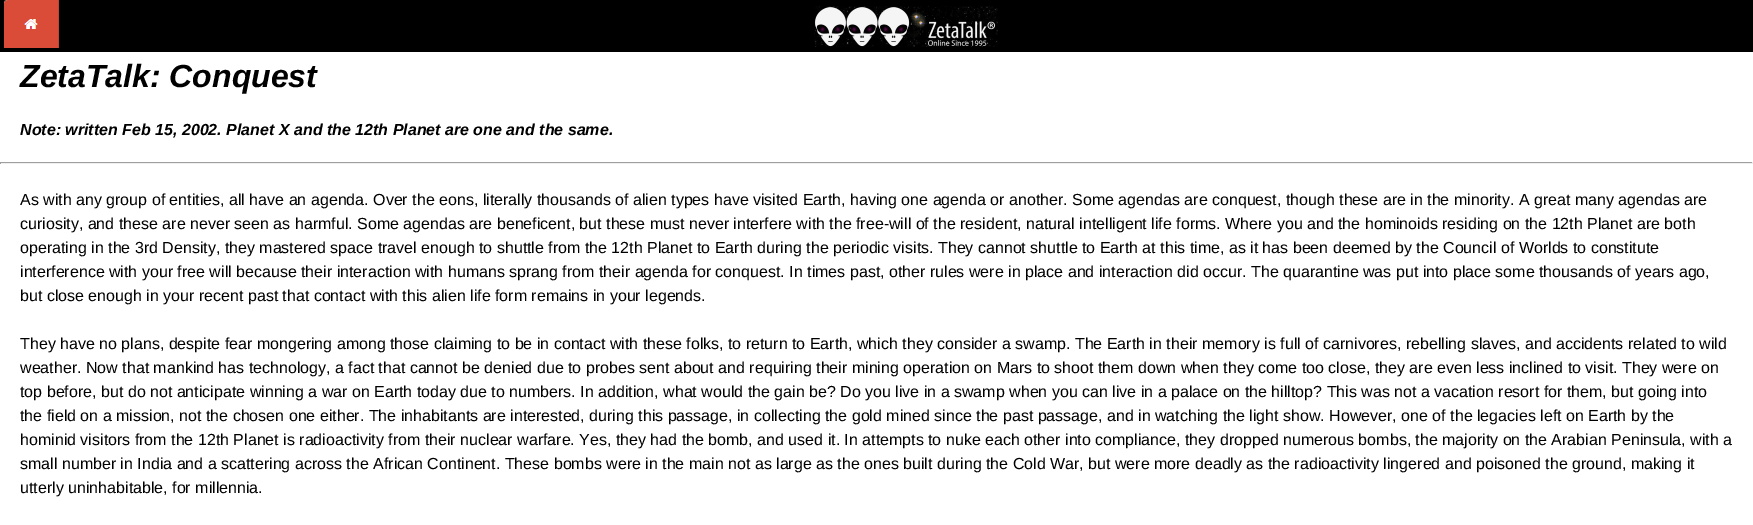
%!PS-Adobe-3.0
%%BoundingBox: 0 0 1753 525
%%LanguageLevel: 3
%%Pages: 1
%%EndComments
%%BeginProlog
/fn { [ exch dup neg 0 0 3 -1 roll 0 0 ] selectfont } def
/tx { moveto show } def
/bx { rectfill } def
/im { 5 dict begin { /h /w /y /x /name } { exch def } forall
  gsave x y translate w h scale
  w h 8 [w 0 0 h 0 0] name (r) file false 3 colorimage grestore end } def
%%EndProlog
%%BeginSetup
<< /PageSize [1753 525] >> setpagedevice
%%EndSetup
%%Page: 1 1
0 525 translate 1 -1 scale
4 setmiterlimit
1 setgray
0 0 1753 525 bx
0 setgray
0 0 1753 52 bx
(image0.raw) 4 0 55 48 im
(image1.raw) 814 6 184 41 im
/LiberationSans-BoldItalic 32 fn
(ZetaTalk: Conquest) 20 87 tx
/LiberationSans-BoldItalic 16 fn
(Note: written Feb 15, 2002. Planet X and the 12th Planet are one and the same.) 20 135 tx
0.624 setgray
0 162 1753 1 bx
0.933 setgray
1752 162 1 2 bx
0 163 1753 1 bx
0.624 setgray
0 162 1 2 bx
/LiberationSans-Regular 16 fn
0 setgray
(As with any group of entities, all have an agenda. Over the eons, literally thousands of alien types have visited Earth, having one agenda or another. Some agendas are conquest, though these are in the minority. A great many agendas are) 20 205 tx
(curiosity, and these are never seen as harmful. Some agendas are beneficent, but these must never interfere with the free-will of the resident, natural intelligent life forms. Where you and the hominoids residing on the 12th Planet are both) 20 229 tx
(operating in the 3rd Density, they mastered space travel enough to shuttle from the 12th Planet to Earth during the periodic visits. They cannot shuttle to Earth at this time, as it has been deemed by the Council of Worlds to constitute) 20 253 tx
(interference with your free will because their interaction with humans sprang from their agenda for conquest. In times past, other rules were in place and interaction did occur. The quarantine was put into place some thousands of years ago,) 20 277 tx
(but close enough in your recent past that contact with this alien life form remains in your legends.) 20 301 tx
(They have no plans, despite fear mongering among those claiming to be in contact with these folks, to return to Earth, which they consider a swamp. The Earth in their memory is full of carnivores, rebelling slaves, and accidents related to wild) 20 349 tx
(weather. Now that mankind has technology, a fact that cannot be denied due to probes sent about and requiring their mining operation on Mars to shoot them down when they come too close, they are even less inclined to visit. They were on) 20 373 tx
(top before, but do not anticipate winning a war on Earth today due to numbers. In addition, what would the gain be? Do you live in a swamp when you can live in a palace on the hilltop? This was not a vacation resort for them, but going into) 20 397 tx
(the field on a mission, not the chosen one either. The inhabitants are interested, during this passage, in collecting the gold mined since the past passage, and in watching the light show. However, one of the legacies left on Earth by the) 20 421 tx
(hominid visitors from the 12th Planet is radioactivity from their nuclear warfare. Yes, they had the bomb, and used it. In attempts to nuke each other into compliance, they dropped numerous bombs, the majority on the Arabian Peninsula, with a) 20 445 tx
(small number in India and a scattering across the African Continent. These bombs were in the main not as large as the ones built during the Cold War, but were more deadly as the radioactivity lingered and poisoned the ground, making it) 20 469 tx
(utterly uninhabitable, for millennia.) 20 493 tx
showpage
%%EOF
